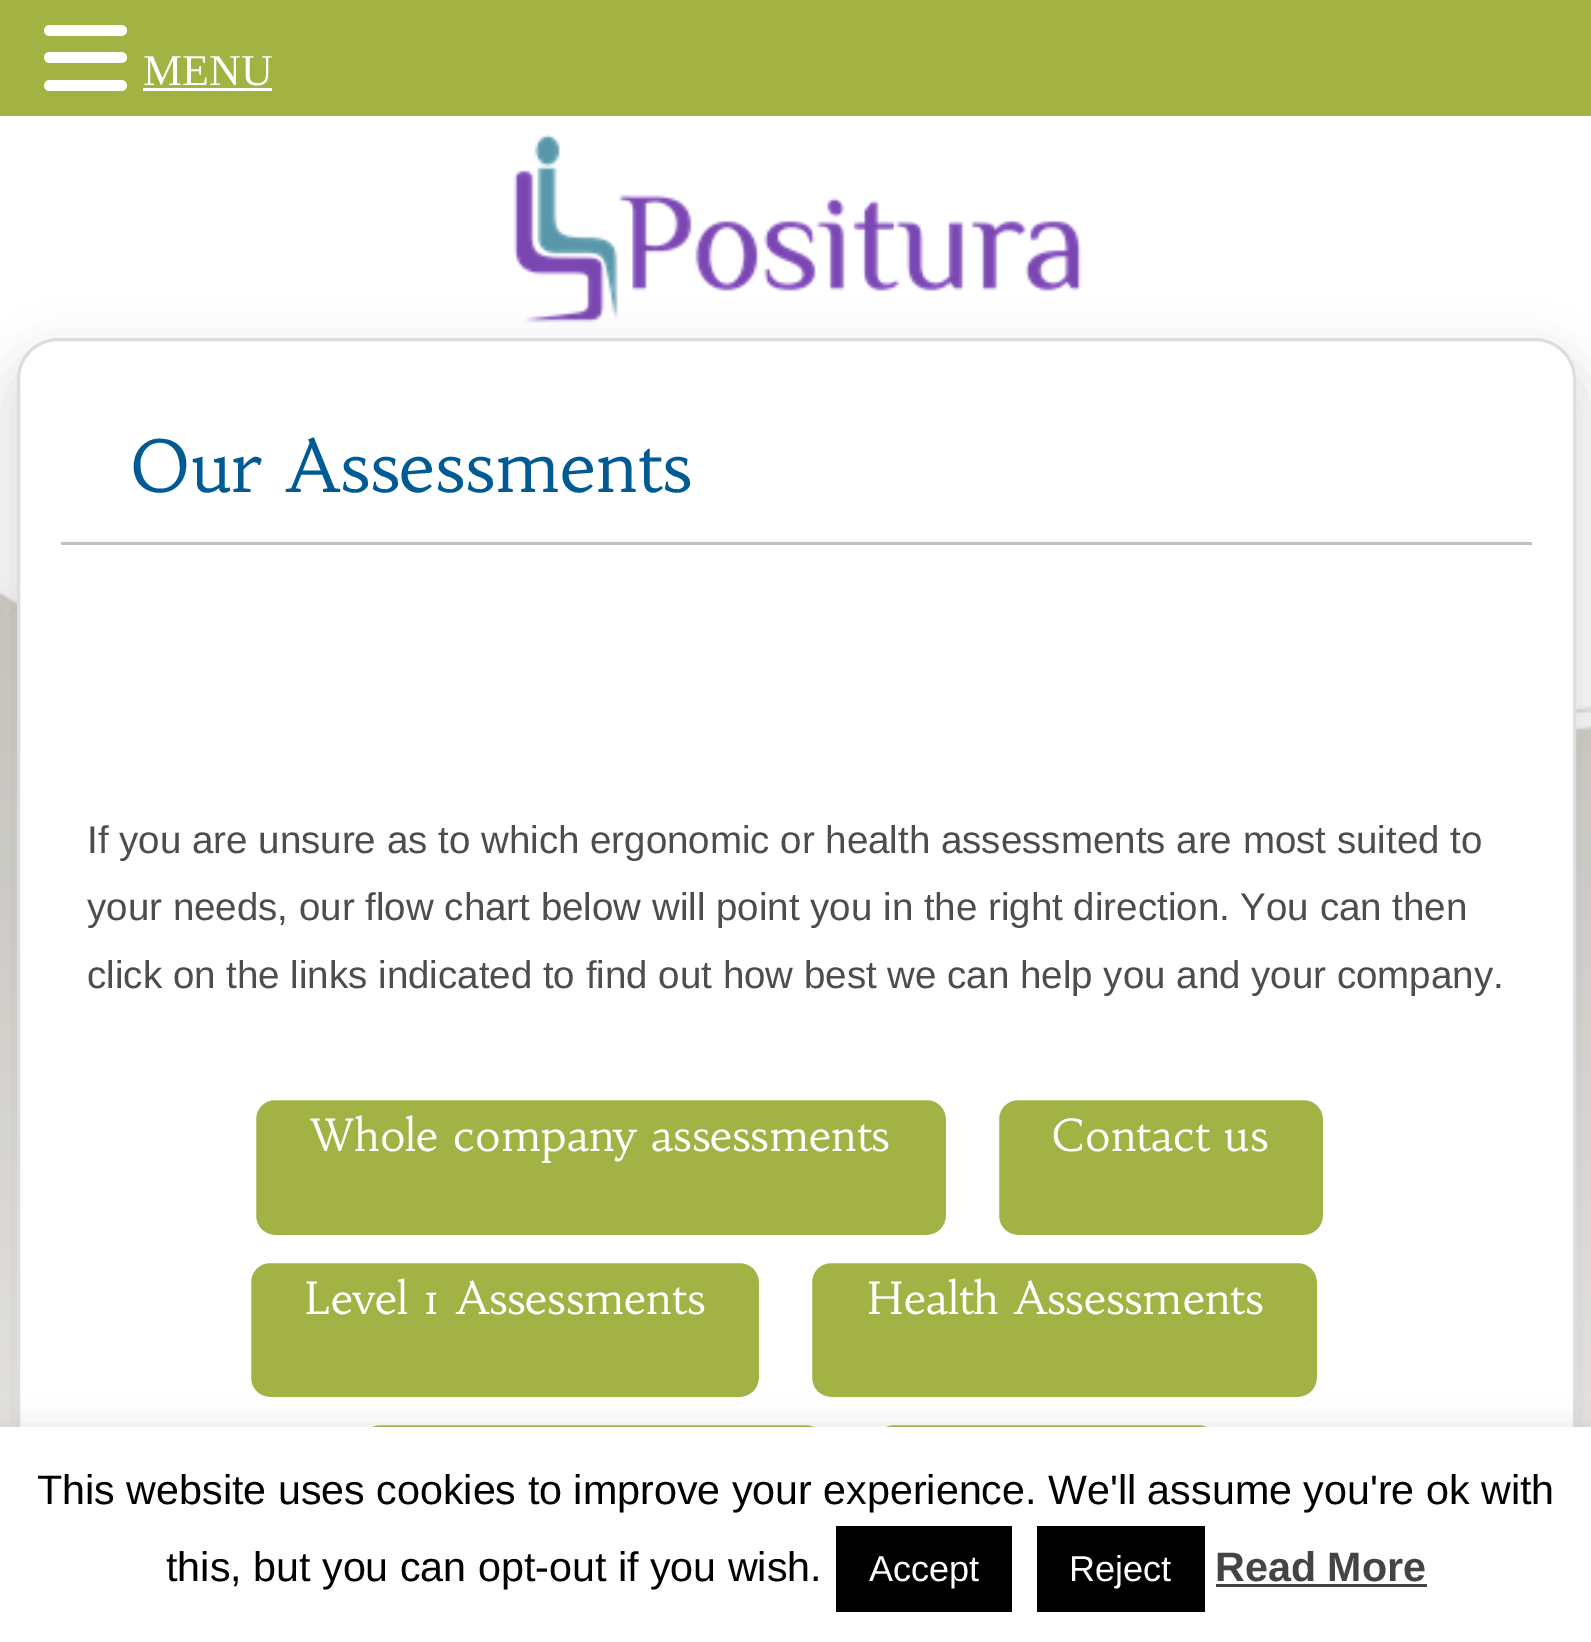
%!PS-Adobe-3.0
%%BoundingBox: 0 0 1591 1642
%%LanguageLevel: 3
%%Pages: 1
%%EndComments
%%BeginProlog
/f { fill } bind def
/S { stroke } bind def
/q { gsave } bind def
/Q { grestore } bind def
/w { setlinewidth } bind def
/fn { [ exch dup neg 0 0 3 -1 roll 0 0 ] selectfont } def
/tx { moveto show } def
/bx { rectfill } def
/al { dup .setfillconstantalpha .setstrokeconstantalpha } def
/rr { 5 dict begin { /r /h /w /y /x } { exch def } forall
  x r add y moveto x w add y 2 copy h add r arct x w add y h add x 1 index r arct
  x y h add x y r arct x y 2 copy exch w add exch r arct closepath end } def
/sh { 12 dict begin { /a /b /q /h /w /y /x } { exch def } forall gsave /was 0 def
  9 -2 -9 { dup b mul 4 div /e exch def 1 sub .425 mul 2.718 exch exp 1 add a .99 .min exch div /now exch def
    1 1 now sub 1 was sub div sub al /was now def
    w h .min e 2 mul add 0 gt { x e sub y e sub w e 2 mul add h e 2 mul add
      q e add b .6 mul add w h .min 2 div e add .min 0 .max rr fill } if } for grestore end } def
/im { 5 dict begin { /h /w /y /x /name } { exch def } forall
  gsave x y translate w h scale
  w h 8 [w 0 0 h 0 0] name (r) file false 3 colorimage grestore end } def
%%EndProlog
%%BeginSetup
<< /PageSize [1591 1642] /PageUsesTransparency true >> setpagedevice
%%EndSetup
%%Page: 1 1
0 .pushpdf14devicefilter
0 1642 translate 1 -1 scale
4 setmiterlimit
1 setgray
0 0 1591 1642 bx
0.635 0.698 0.263 setrgbcolor
0 0 1591 116 bx
1 setgray
44 25 83 11 5.5 rr f
44 52 83 11 5.5 rr f
44 80 83 11 5.5 rr f
/LiberationSerif-Regular 44 fn
(MENU) 143 85 tx
143 88 129 3 bx
(image0.raw) 0 581 1591 846 im
(image1.raw) 513 134 569 189 im
0 setgray
-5 344 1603 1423 63 20.5 0.09 sh
1 setgray
18.5 339.5 1556 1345 39.5 rr q f Q
0.851 0.871 0.89 setrgbcolor
3 w
S
0.635 0.698 0.267 setrgbcolor
244 1256 522 148 26 rr q f Q
1 setgray
14 w
S
0.635 0.698 0.267 setrgbcolor
805 1256 519 148 26 rr q f Q
1 setgray
S
0.635 0.698 0.267 setrgbcolor
354 1418 478 148 26 rr q f Q
1 setgray
S
0.635 0.698 0.267 setrgbcolor
868 1418 357 148 26 rr q f Q
1 setgray
S
0.675 0.671 0.671 setrgbcolor
0 1425 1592 217 0 14 0.3 sh
1 setgray
0 1427 1591 215 bx
/LiberationSans-Regular 41.25 fn
0 setgray
(This website uses cookies to improve your experience. We'll assume you're ok with) 37 1504 tx
(this, but you can opt-out if you wish.) 166 1581 tx
836 1526 176 86 bx
/LiberationSans-Regular 36 fn
1 setgray
(Accept) 869 1581 tx
0 setgray
1037 1526 168 86 bx
1 setgray
(Reject) 1069 1581 tx
/LiberationSans-Bold 41.25 fn
0.267 setgray
(Read More) 1215 1581 tx
1216 1584 211 3 bx
0.725 0.761 0.796 setrgbcolor
61 542 1471 3 bx
/Habibi-Regular 71.5 fn
0 0.357 0.58 setrgbcolor
(Our Assessments) 131 492 tx
/LiberationSans-Regular 38.5 fn
0.302 0.302 0.31 setrgbcolor
(If you are unsure as to which ergonomic or health assessments are most suited to) 87 853 tx
(your needs, our flow chart below will point you in the right direction. You can then) 87 920 tx
(click on the links indicated to find out how best we can help you and your company.) 87 988 tx
0.635 0.698 0.267 setrgbcolor
249 1093 704 149 26 rr q f Q
1 setgray
S
/Habibi-Regular 44 fn
(Whole company assessments) 310 1151 tx
0.635 0.698 0.267 setrgbcolor
992 1093 338 149 26 rr q f Q
1 setgray
S
(Contact us) 1052 1151 tx
(Level 1 Assessments) 305 1314 tx
(Health Assessments) 867 1314 tx
.poppdf14devicefilter showpage
%%EOF
